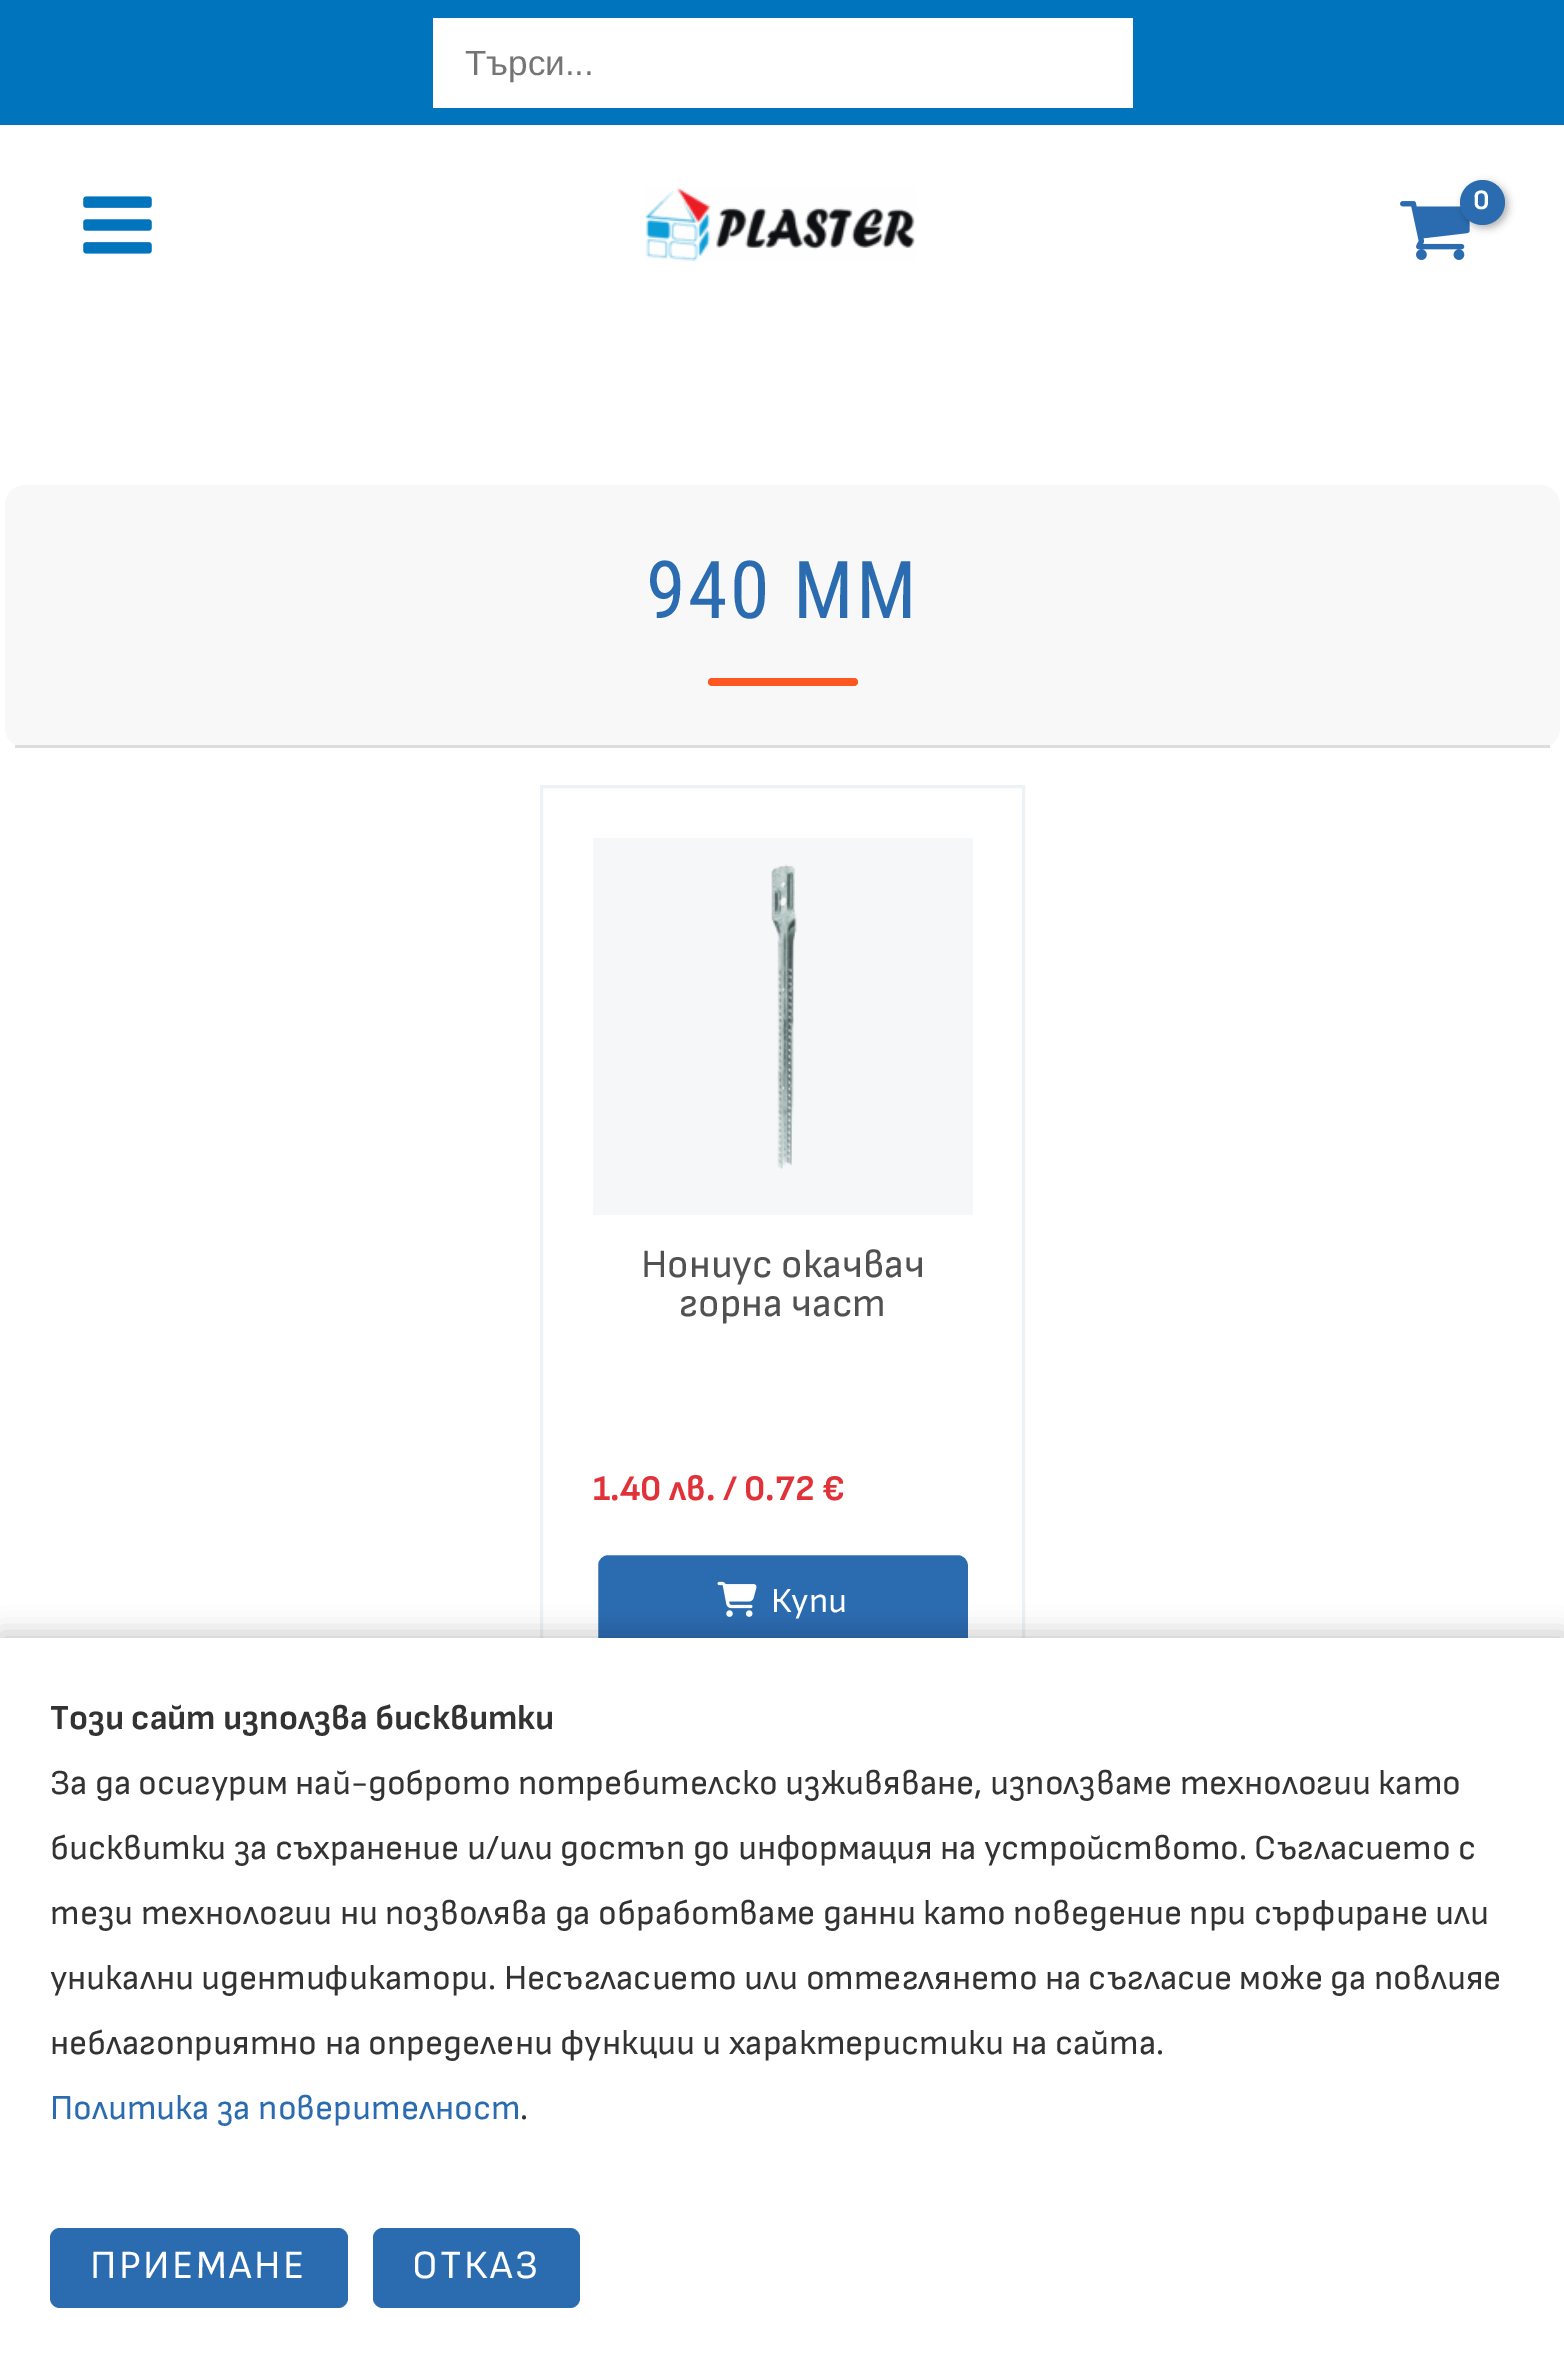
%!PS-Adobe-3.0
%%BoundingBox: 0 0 1564 2356
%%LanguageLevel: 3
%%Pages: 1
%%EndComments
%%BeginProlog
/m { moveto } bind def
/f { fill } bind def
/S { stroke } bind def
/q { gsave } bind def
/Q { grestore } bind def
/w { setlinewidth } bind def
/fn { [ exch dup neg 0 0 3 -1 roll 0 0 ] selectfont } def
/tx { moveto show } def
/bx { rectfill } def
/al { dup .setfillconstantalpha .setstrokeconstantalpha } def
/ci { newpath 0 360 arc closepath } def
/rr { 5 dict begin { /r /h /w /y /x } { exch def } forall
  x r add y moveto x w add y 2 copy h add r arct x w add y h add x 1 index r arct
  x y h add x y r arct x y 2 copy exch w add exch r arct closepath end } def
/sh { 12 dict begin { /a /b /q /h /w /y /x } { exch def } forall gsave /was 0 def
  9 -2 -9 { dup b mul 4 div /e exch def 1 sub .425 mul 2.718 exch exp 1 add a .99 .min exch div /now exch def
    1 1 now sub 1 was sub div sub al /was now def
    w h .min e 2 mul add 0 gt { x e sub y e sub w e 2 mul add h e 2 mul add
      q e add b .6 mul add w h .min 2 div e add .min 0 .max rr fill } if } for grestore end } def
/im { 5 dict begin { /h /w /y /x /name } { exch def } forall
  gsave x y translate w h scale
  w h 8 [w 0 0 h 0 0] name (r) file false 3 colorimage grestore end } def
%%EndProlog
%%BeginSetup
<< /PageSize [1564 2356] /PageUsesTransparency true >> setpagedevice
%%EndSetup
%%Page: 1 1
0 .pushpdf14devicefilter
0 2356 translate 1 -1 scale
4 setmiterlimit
1 setgray
0 0 1564 2356 bx
0 0.459 0.745 setrgbcolor
0 0 1564 125 bx
1 setgray
433 18 700 90 bx
/LiberationSans-Regular 35 fn
0.459 setgray
(Търси...) 465 75 tx
(image0.raw) 83 196 69 58 im
(image1.raw) 645 187 271 75 im
(image2.raw) 1400 201 70 59 im
0 setgray
1463 183 45 45 22.5 4 0.3 sh
0.169 0.424 0.69 setrgbcolor
1482.5 202.5 22.5 ci f
/SofiaSans-Bold 28 fn
1 setgray
1473 209 m -1 0 (0) ashow
0.973 setgray
5 485 1555 263 20 rr f
0.867 setgray
15 745 1535 3 bx
/RobotoCondensed-Regular 80 fn
0.169 0.424 0.69 setrgbcolor
646 618 m 2.5 0 (940 ММ) ashow
1 0.341 0.133 setrgbcolor
708 678 150 8 4 rr f
0.929 0.949 0.969 setrgbcolor
3 w
541.5 786.5 482 932 rectstroke
0.961 0.969 0.976 setrgbcolor
593 838 380 377 bx
(image3.raw) 771 864 26 305 im
/SofiaSans-Regular 40 fn
0.318 setgray
(Нониус окачвач) 641 1277 tx
(горна част) 679 1316 tx
/SofiaSans-Bold 36 fn
0.878 0.196 0.22 setrgbcolor
(1.40 лв. / 0.72 €) 593 1500 tx
0.169 0.424 0.69 setrgbcolor
595.5 1552.5 375 100 12.5 rr q f Q
1 setgray
5 w
S
(image4.raw) 717 1581 40 36 im
/SofiaSans-Regular 35 fn
(Купи) 771 1612 tx
0 setgray
0 1633 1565 720 0 12.5 0.2 sh
1 setgray
0 1638 1564 718 bx
/SofiaSans-Bold 35 fn
0.2 setgray
(Този сайт използва бисквитки) 50 1729 tx
/SofiaSans-Regular 35 fn
(За да осигурим най-доброто потребителско изживяване, използваме технологии като) 50 1794 tx
(бисквитки за съхранение и/или достъп до информация на устройството. Съгласието с) 50 1859 tx
(тези технологии ни позволява да обработваме данни като поведение при сърфиране или) 50 1924 tx
(уникални идентификатори. Несъгласието или оттеглянето на съгласие може да повлияе) 50 1989 tx
(неблагоприятно на определени функции и характеристики на сайта.) 50 2054 tx
0.169 0.424 0.69 setrgbcolor
(Политика за поверителност) 50 2119 tx
0.2 setgray
(.) 520 2119 tx
0.169 0.424 0.69 setrgbcolor
50 2228 298 80 10 rr f
/SofiaSans-Regular 40 fn
1 setgray
90 2278 m 2.5 0 (ПРИЕМАНЕ) ashow
0.169 0.424 0.69 setrgbcolor
373 2228 207 80 10 rr f
1 setgray
412 2278 m 2.5 0 (ОТКАЗ) ashow
.poppdf14devicefilter showpage
%%EOF
